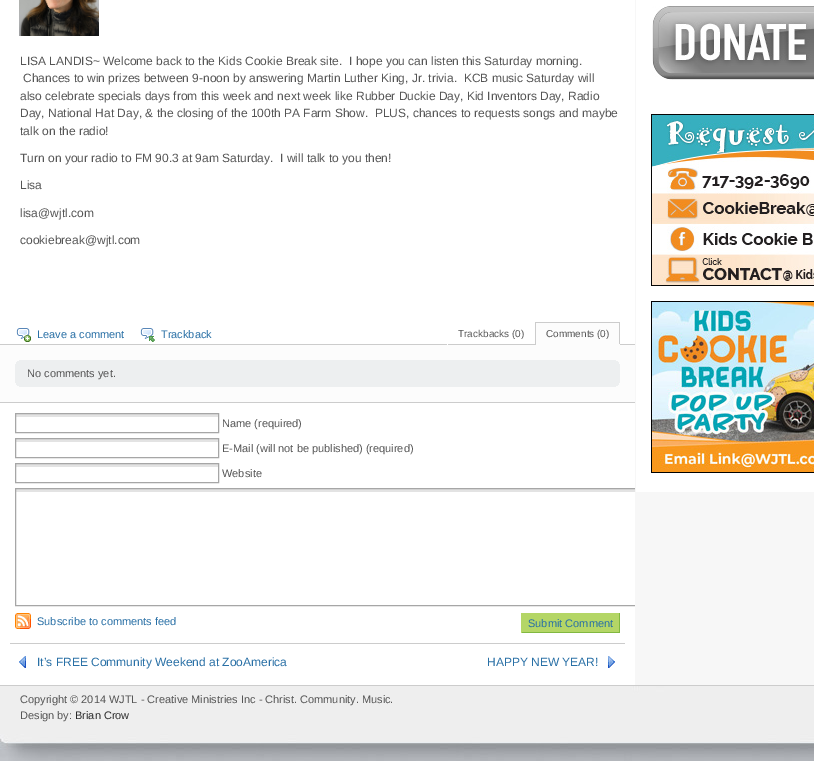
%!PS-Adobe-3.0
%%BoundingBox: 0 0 814 761
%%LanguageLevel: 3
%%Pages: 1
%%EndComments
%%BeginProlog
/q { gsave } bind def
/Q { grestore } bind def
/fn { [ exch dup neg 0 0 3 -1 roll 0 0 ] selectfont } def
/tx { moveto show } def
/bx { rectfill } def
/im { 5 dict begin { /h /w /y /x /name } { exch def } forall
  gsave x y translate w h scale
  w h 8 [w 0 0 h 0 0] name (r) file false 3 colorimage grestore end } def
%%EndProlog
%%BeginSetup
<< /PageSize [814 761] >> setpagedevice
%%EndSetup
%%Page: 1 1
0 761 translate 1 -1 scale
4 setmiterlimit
1 setgray
0 0 814 761 bx
0.969 setgray
635 0 179 685 bx
(image0.raw) 19 0 80 36 im
/LiberationSans-Regular 12 fn
0.333 setgray
(LISA LANDIS~ Welcome back to the Kids Cookie Break site.  I hope you can listen this Saturday morning.) 20 65 tx
(Chances to win prizes between 9-noon by answering Martin Luther King, Jr. trivia.  KCB music Saturday will) 23 82 tx
(also celebrate specials days from this week and next week like Rubber Duckie Day, Kid Inventors Day, Radio) 20 100 tx
(Day, National Hat Day, & the closing of the 100th PA Farm Show.  PLUS, chances to requests songs and maybe) 20 117 tx
(talk on the radio!) 20 135 tx
(Turn on your radio to FM 90.3 at 9am Saturday.  I will talk to you then!) 20 162 tx
(Lisa) 20 189 tx
(lisa@wjtl.com) 20 217 tx
(cookiebreak@wjtl.com) 20 244 tx
(image1.raw) 16 328 15 14 im
/LiberationSans-Regular 11 fn
0.161 0.439 0.651 setrgbcolor
(Leave a comment) 37 338 tx
(image2.raw) 140 328 15 14 im
(Trackback) 161 338 tx
0.8 setgray
0 344 635 1 bx
1 setgray
534 344 1 1 bx
0.8 setgray
534 344 1 1 bx
1 setgray
447 344 1 1 bx
/LiberationSans-Regular 10 fn
0.333 setgray
(Trackbacks \(0\)) 458 337 tx
0.988 setgray
536 323 83 21 bx
0.8 setgray
535 322 85 1 bx
619 322 1 23 bx
0.988 setgray
535 344 85 1 bx
0.8 setgray
535 322 1 23 bx
0.333 setgray
(Comments \(0\)) 546 337 tx
0.988 setgray
0 345 635 57 bx
0.8 setgray
0 402 635 1 bx
0.929 0.937 0.941 setrgbcolor
15 360 605 27 bx
(image3.raw) 15 360 605 27 im
/LiberationSans-Regular 11 fn
0.333 setgray
(No comments yet.) 27 377 tx
0.89 setgray
15 414 204 3 bx
0.651 setgray
15.5 413.5 203 19 rectstroke
0.333 setgray
(Name \(required\)) 222 427 tx
0.89 setgray
15 439 204 3 bx
0.651 setgray
15.5 438.5 203 19 rectstroke
0.333 setgray
(E-Mail \(will not be published\) \(required\)) 222 452 tx
0.89 setgray
15 464 204 3 bx
0.651 setgray
15.5 463.5 203 19 rectstroke
0.333 setgray
(Website) 222 477 tx
0.89 setgray
15 489 620 3 bx
q
0 0 635 685 rectclip
0.651 setgray
15.5 488.5 654 117 rectstroke
Q
(image4.raw) 15 613 16 16 im
0.161 0.439 0.651 setrgbcolor
(Subscribe to comments feed) 37 625 tx
0.706 0.839 0.4 setrgbcolor
522 613 97 19 bx
0.506 0.722 0.251 setrgbcolor
619 613 1 20 bx
521 632 99 1 bx
0.706 0.839 0.4 setrgbcolor
521 613 1 20 bx
0.161 0.439 0.651 setrgbcolor
(Submit Comment) 528 627 tx
0.8 setgray
10 643 615 1 bx
(image5.raw) 19 656 7 12 im
/LiberationSans-Regular 12 fn
0.161 0.439 0.651 setrgbcolor
(It’s FREE Community Weekend at ZooAmerica) 37 666 tx
(image6.raw) 608 656 7 12 im
(HAPPY NEW YEAR!) 487 666 tx
1 setgray
636 0 178 492 bx
(image7.raw) 652 6 162 74 im
(image8.raw) 651 114 163 172 im
(image9.raw) 651 301 163 172 im
(image10.raw) 0 686 814 75 im
0.8 setgray
0 685 814 1 bx
/LiberationSans-Regular 11 fn
0.333 setgray
(Copyright © 2014 WJTL - Creative Ministries Inc - Christ. Community. Music.) 20 703 tx
(Design by:) 20 719 tx
0.165 setgray
(Brian Crow) 75 719 tx
showpage
%%EOF
